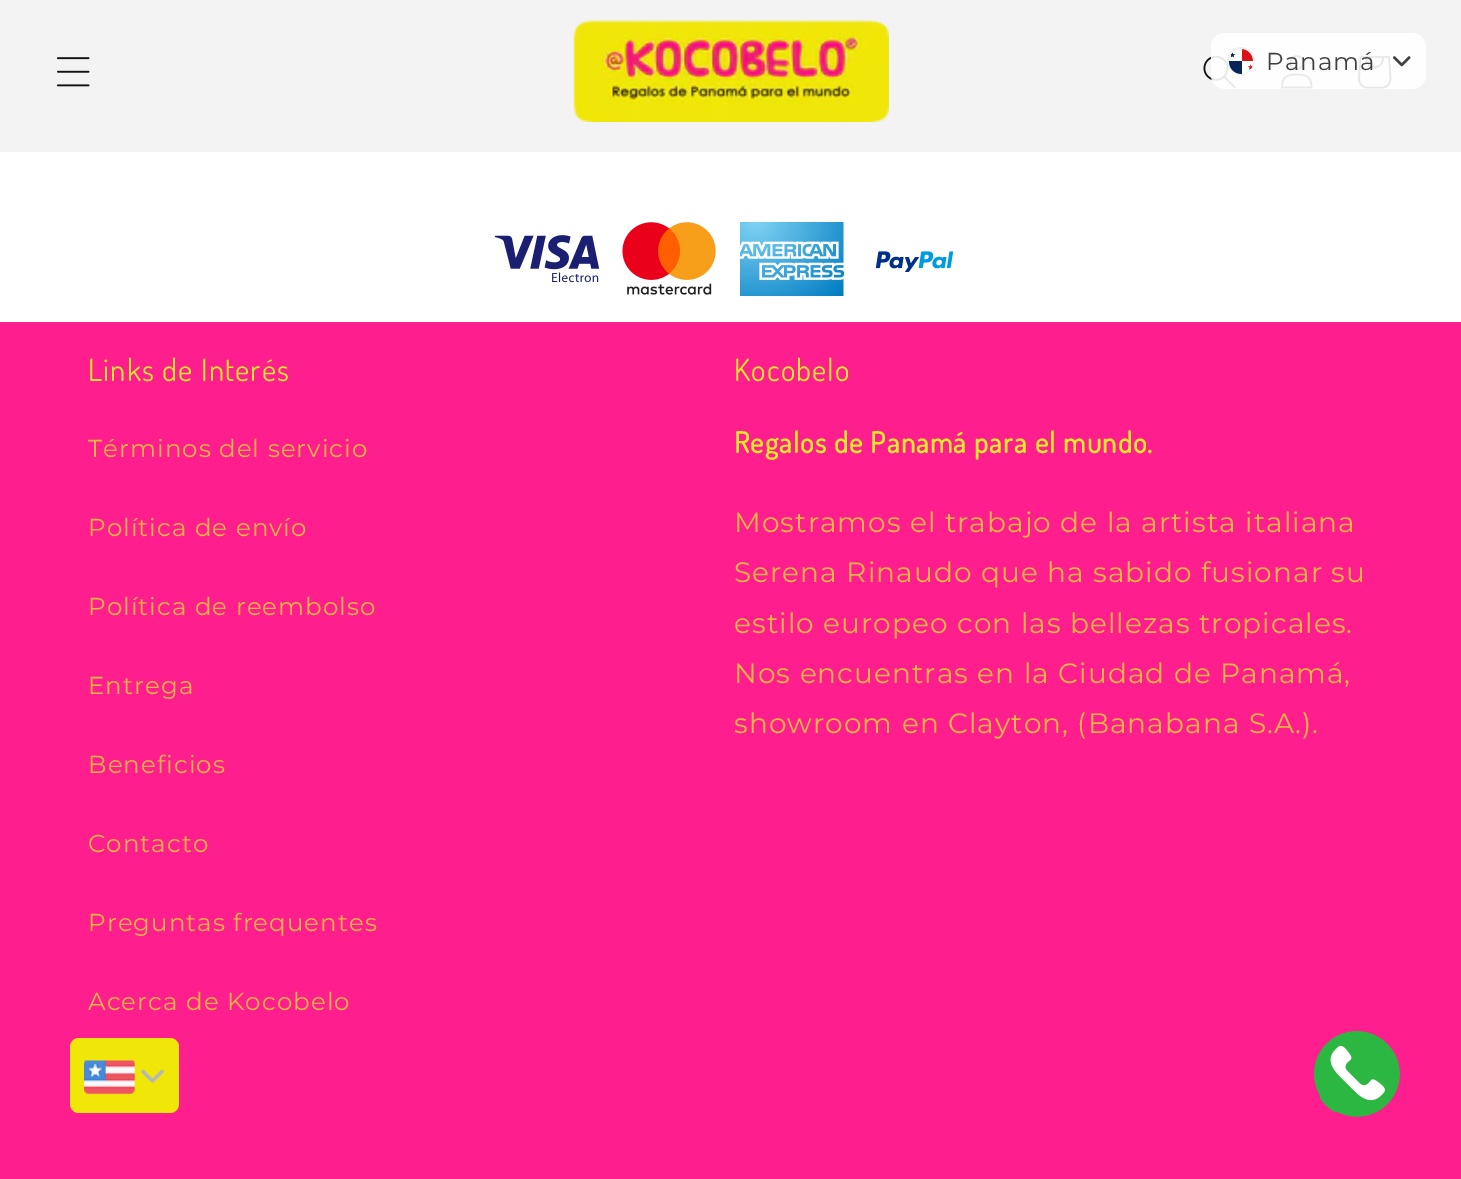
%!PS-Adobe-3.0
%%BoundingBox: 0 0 1461 1179
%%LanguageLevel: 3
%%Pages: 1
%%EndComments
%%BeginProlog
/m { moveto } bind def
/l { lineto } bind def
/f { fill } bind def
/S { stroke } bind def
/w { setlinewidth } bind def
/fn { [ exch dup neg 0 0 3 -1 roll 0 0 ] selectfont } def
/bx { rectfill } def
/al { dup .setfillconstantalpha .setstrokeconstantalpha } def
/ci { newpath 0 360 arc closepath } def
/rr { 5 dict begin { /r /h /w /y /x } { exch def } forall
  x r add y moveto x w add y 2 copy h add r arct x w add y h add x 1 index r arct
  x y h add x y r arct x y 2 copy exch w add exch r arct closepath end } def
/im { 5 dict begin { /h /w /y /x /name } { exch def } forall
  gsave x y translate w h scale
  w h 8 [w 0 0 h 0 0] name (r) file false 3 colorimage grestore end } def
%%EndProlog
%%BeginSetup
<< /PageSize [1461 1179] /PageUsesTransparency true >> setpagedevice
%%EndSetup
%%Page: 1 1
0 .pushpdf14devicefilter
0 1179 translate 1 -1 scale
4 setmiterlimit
1 setgray
0 0 1461 1179 bx
0.953 setgray
0 0 1461 152 bx
(image0.raw) 57 57 33 30 im
(image1.raw) 573 20 316 102 im
(image2.raw) 1203 55 33 34 im
(image3.raw) 1281 55 32 34 im
(image4.raw) 1358 55 34 34 im
0.9 al
1 setgray
1211 33 215 56 14 rr f
0.5 al
0.882 0.89 0.898 setrgbcolor
2 w
1241 61 13 ci S
1 al
(image5.raw) 1229 49 24 25 im
/Montserrat-Regular 24.5 fn
0.251 setgray
1266 70 m 1.05 0 (Panamá) ashow
(image6.raw) 1393 56 18 11 im
(image7.raw) 495 235 105 48 im
(image8.raw) 622 222 94 73 im
(image9.raw) 740 222 104 74 im
(image10.raw) 875 251 79 21 im
1 0.118 0.553 setrgbcolor
0 322 1461 857 bx
/Dosis-Regular 30.75 fn
0.894 0.918 0.157 setrgbcolor
88 381 m 1.15 0 (Links de Interés) ashow
/Montserrat-Regular 24.5 fn
0.922 0.718 0.255 setrgbcolor
88 457 m 1.05 0 (Términos del servicio) ashow
88 536 m 1.05 0 (Política de envío) ashow
88 615 m 1.05 0 (Política de reembolso) ashow
88 694 m 1.05 0 (Entrega) ashow
88 773 m 1.05 0 (Beneficios) ashow
88 852 m 1.05 0 (Contacto) ashow
88 931 m 1.05 0 (Preguntas frequentes) ashow
88 1010 m 1.05 0 (Acerca de Kocobelo) ashow
/Dosis-Regular 30.75 fn
0.894 0.918 0.157 setrgbcolor
734 381 m 1.15 0 (Kocobelo) ashow
/Dosis-Bold 28.9 fn
734 453 m 1.15 0 (Regalos de Panamá para el mundo.) ashow
/Montserrat-Regular 28 fn
0.922 0.718 0.255 setrgbcolor
734 532 m 1.05 0 (Mostramos el trabajo de la artista italiana) ashow
734 582 m 1.05 0 (Serena Rinaudo que ha sabido fusionar su) ashow
734 633 m 1.05 0 (estilo europeo con las bellezas tropicales.) ashow
734 683 m 1.05 0 (Nos encuentras en la Ciudad de Panamá,) ashow
734 733 m 1.05 0 (showroom en Clayton, \(Banabana S.A.\).) ashow
0.941 0.902 0.027 setrgbcolor
70 1038 109 75 9 rr f
(image11.raw) 84 1060 51 35 im
0.718 setgray
3.2 w
1 setlinecap
1 setlinejoin
143 1071.5 m 152.5 1081 l 162 1071.5 l S
(image12.raw) 1314 1031 86 86 im
.poppdf14devicefilter showpage
%%EOF
